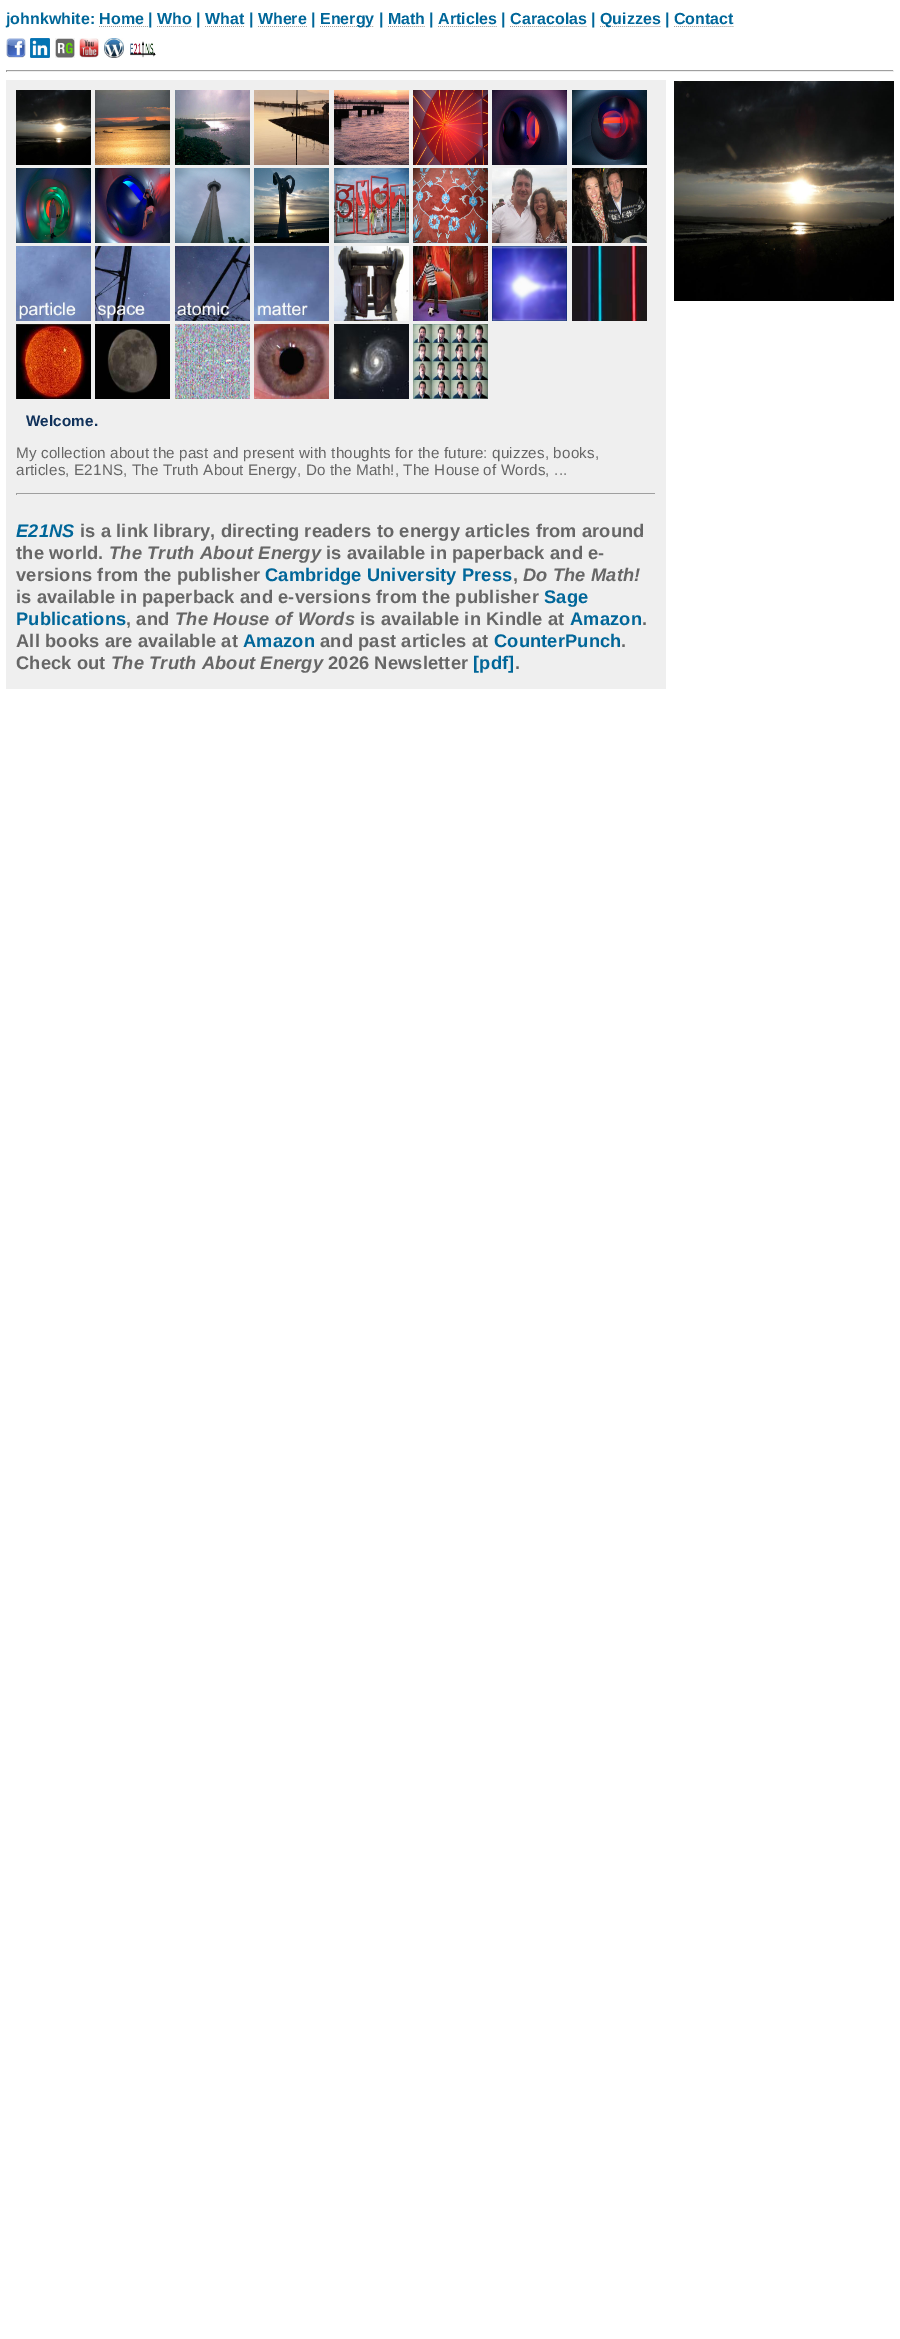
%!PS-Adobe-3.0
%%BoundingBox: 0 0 900 2339
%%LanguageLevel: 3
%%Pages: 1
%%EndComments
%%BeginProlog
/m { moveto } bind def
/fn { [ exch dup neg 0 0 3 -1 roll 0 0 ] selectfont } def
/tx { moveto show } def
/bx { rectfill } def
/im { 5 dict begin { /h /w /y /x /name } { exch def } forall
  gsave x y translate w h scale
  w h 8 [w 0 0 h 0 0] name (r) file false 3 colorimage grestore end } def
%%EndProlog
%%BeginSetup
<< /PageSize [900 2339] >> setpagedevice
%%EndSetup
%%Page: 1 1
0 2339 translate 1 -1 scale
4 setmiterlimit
1 setgray
0 0 900 2339 bx
/LiberationSans-Bold 16 fn
0 0.4 0.6 setrgbcolor
(johnkwhite: Home | Who | What | Where |) 6 24 tx
(image3.raw) 320 26 54 1 im
(Energy | Math | Articles | Caracolas |) 320 24 tx
(image7.raw) 600 26 61 1 im
(Quizzes | Contact) 600 24 tx
(image0.raw) 99 26 49 1 im
(image1.raw) 157 26 35 1 im
(image2.raw) 205 26 39 1 im
(image0.raw) 258 26 49 1 im
(image4.raw) 388 26 37 1 im
(image5.raw) 438 26 59 1 im
(image6.raw) 510 26 77 1 im
(image8.raw) 674 26 60 1 im
(image9.raw) 6 38 20 20 im
(image10.raw) 30 38 20 20 im
(image11.raw) 55 38 20 20 im
(image12.raw) 79 38 20 20 im
(image13.raw) 104 38 20 20 im
(image14.raw) 130 41 26 17 im
0.624 setgray
6 70 888 1 bx
0.933 setgray
893 70 1 2 bx
6 71 888 1 bx
0.624 setgray
6 70 1 2 bx
(image15.raw) 674 81 220 220 im
0.937 setgray
6 80 660 609 bx
(image16.raw) 16 90 75 75 im
(image17.raw) 95 90 75 75 im
(image18.raw) 175 90 75 75 im
(image19.raw) 254 90 75 75 im
(image20.raw) 334 90 75 75 im
(image21.raw) 413 90 75 75 im
(image22.raw) 492 90 75 75 im
(image23.raw) 572 90 75 75 im
(image24.raw) 16 168 75 75 im
(image25.raw) 95 168 75 75 im
(image26.raw) 175 168 75 75 im
(image27.raw) 254 168 75 75 im
(image28.raw) 334 168 75 75 im
(image29.raw) 413 168 75 75 im
(image30.raw) 492 168 75 75 im
(image31.raw) 572 168 75 75 im
(image32.raw) 16 246 75 75 im
(image33.raw) 95 246 75 75 im
(image34.raw) 175 246 75 75 im
(image35.raw) 254 246 75 75 im
(image36.raw) 334 246 75 75 im
(image37.raw) 413 246 75 75 im
(image38.raw) 492 246 75 75 im
(image39.raw) 572 246 75 75 im
(image40.raw) 16 324 75 75 im
(image41.raw) 95 324 75 75 im
(image42.raw) 175 324 75 75 im
(image43.raw) 254 324 75 75 im
(image44.raw) 334 324 75 75 im
(image45.raw) 413 324 75 75 im
/LiberationSans-Bold 15.2 fn
0.063 0.192 0.353 setrgbcolor
26 426 m 0.15 0 (Welcome.) ashow
/LiberationSans-Regular 15.2 fn
0.4 setgray
16 458 m 0.15 0 (My collection about the past and present with thoughts for the future: quizzes, books,) ashow
16 475 m 0.15 0 (articles, E21NS, The Truth About Energy, Do the Math!, The House of Words, ...) ashow
0.624 setgray
16 493 640 1 bx
0.933 setgray
655 493 1 2 bx
0.624 setgray
16 493 1 2 bx
/LiberationSans-BoldItalic 18.25 fn
0 0.4 0.6 setrgbcolor
16 537 m 0.15 0 (E21NS) ashow
/LiberationSans-Bold 18.25 fn
0.4 setgray
80 537 m 0.15 0 (is a link library, directing readers to energy articles from around) ashow
16 559 m 0.15 0 (the world.) ashow
/LiberationSans-BoldItalic 18.25 fn
109 559 m 0.15 0 (The Truth About Energy) ashow
/LiberationSans-Bold 18.25 fn
326 559 m 0.15 0 (is available in paperback and e-) ashow
16 581 m 0.15 0 (versions from the publisher) ashow
0 0.4 0.6 setrgbcolor
265 581 m 0.15 0 (Cambridge University Press) ashow
0.4 setgray
513 581 m 0.15 0 (,) ashow
/LiberationSans-BoldItalic 18.25 fn
523 581 m 0.15 0 (Do The Math!) ashow
/LiberationSans-Bold 18.25 fn
16 603 m 0.15 0 (is available in paperback and e-versions from the publisher) ashow
0 0.4 0.6 setrgbcolor
544 603 m 0.15 0 (Sage) ashow
16 625 m 0.15 0 (Publications) ashow
0.4 setgray
126 625 m 0.15 0 (, and) ashow
/LiberationSans-BoldItalic 18.25 fn
175 625 m 0.15 0 (The House of Words) ashow
/LiberationSans-Bold 18.25 fn
360 625 m 0.15 0 (is available in Kindle at) ashow
0 0.4 0.6 setrgbcolor
570 625 m 0.15 0 (Amazon) ashow
0.4 setgray
642 625 m 0.15 0 (.) ashow
16 647 m 0.15 0 (All books are available at) ashow
0 0.4 0.6 setrgbcolor
243 647 m 0.15 0 (Amazon) ashow
0.4 setgray
320 647 m 0.15 0 (and past articles at) ashow
0 0.4 0.6 setrgbcolor
494 647 m 0.15 0 (CounterPunch) ashow
0.4 setgray
621 647 m 0.15 0 (.) ashow
16 669 m 0.15 0 (Check out) ashow
/LiberationSans-BoldItalic 18.25 fn
111 669 m 0.15 0 (The Truth About Energy) ashow
/LiberationSans-Bold 18.25 fn
328 669 m 0.15 0 (2026 Newsletter) ashow
0 0.4 0.6 setrgbcolor
473 669 m 0.15 0 ([pdf]) ashow
0.4 setgray
515 669 m 0.15 0 (.) ashow
showpage
%%EOF
